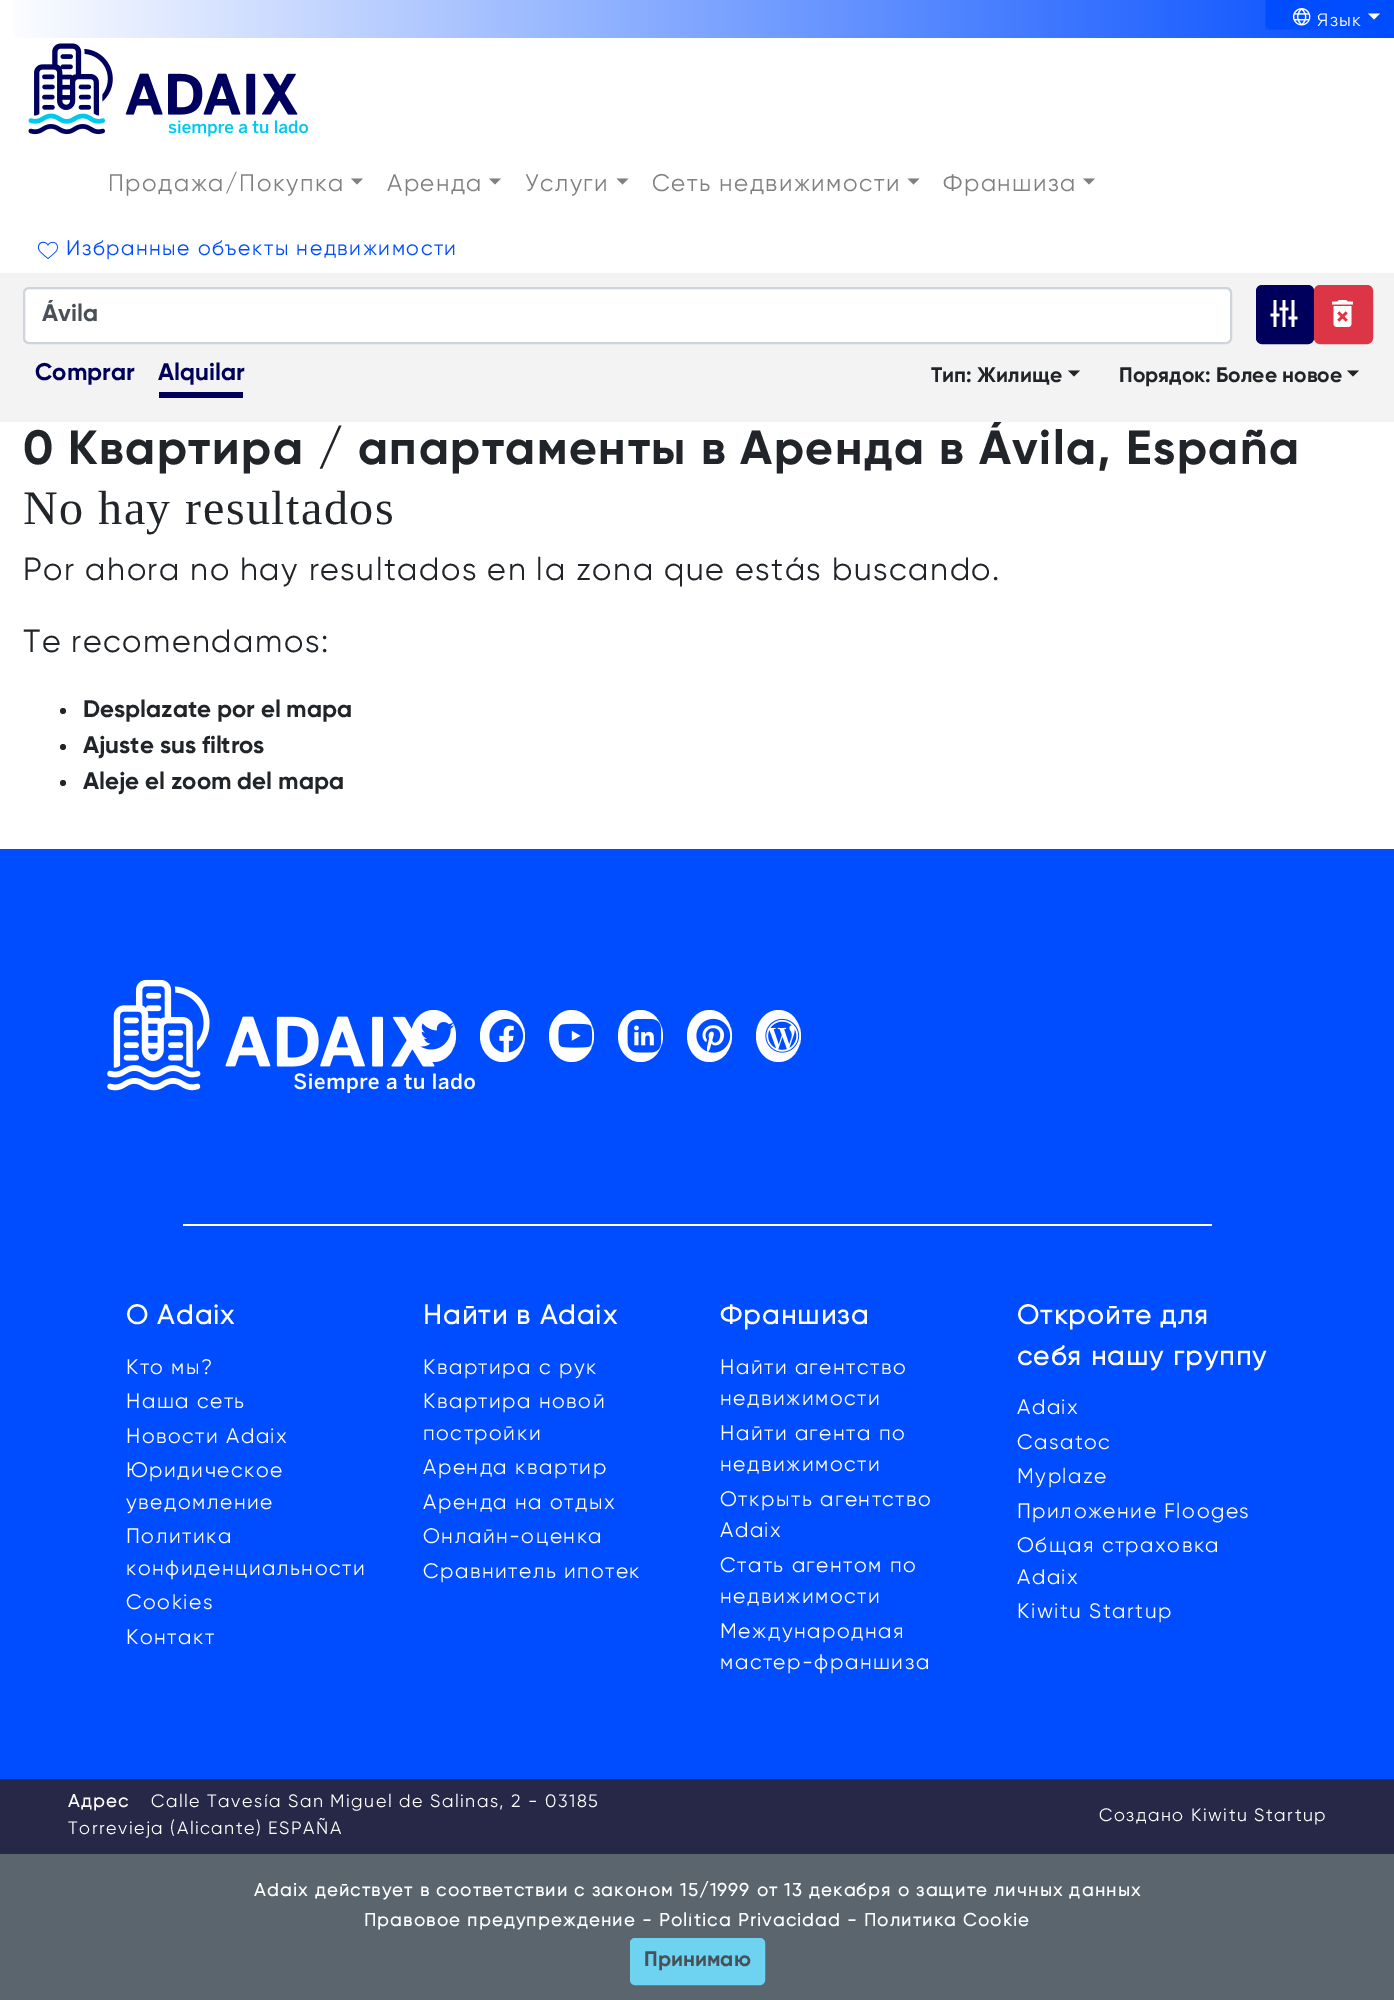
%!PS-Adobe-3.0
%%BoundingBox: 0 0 1394 2000
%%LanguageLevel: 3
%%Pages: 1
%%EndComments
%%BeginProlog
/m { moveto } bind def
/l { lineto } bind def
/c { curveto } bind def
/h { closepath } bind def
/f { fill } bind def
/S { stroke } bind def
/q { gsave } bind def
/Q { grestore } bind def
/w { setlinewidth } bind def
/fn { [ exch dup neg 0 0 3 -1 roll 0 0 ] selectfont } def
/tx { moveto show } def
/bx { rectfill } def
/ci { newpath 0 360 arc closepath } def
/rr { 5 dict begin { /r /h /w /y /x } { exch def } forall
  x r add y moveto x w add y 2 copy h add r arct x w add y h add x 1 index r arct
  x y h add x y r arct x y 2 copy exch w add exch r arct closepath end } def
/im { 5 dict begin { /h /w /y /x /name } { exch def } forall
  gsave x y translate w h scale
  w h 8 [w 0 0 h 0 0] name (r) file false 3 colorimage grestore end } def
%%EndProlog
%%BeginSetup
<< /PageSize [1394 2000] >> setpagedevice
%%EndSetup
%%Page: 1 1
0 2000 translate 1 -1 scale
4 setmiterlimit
1 setgray
0 0 1394 2000 bx
q 14 0 m 1394 0 l 1394 38 l 14 38 l h clip newpath
<< /ShadingType 2 /ColorSpace /DeviceRGB /Coords [0 15 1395 15] /Extend [true true] /Function << /FunctionType 2 /Domain [0 1] /C0 [1 1 1] /C1 [0 0.298 1] /N 1 >> >> shfill Q
q 1265 0 m 1370 0 l 1370 30 l 1265 30 l h clip newpath
<< /ShadingType 2 /ColorSpace /DeviceRGB /Coords [1265 11 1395 11] /Extend [true true] /Function << /FunctionType 2 /Domain [0 1] /C0 [0.047 0.333 1] /C1 [0 0.298 1] /N 1 >> >> shfill Q
0 0.298 1 setrgbcolor
1267 -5 126 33 4 rr q f Q
2 w
S
(image0.raw) 1292 8 19 18 im
/Gilroy-Regular 18 fn
1 setgray
1317 26 m 1.5 0 (Язык) ashow
1368 13.5 m 1380 13.5 l 1374 19.5 l h f
(image1.raw) 28 43 280 94 im
/Gilroy-Regular 24 fn
0.502 setgray
108 191 m 1.5 0 (Продажа/Покупка) ashow
351 178.5 m 363 178.5 l 357 184.5 l h f
387 191 m 1.5 0 (Аренда) ashow
489 178.5 m 501 178.5 l 495 184.5 l h f
525 191 m 1.5 0 (Услуги) ashow
616.5 178.5 m 628.5 178.5 l 622.5 184.5 l h f
652 191 m 1.5 0 (Сеть недвижимости) ashow
907.5 178.5 m 919.5 178.5 l 913.5 184.5 l h f
943 191 m 1.5 0 (Франшиза) ashow
1083 178.5 m 1095 178.5 l 1089 184.5 l h f
(image2.raw) 37 241 21 18 im
/Gilroy-Regular 21 fn
0 0.298 1 setrgbcolor
66 255 m 1.5 0 (Избранные объекты недвижимости) ashow
0.949 0.953 0.949 setrgbcolor
0 273 1394 149 bx
1 setgray
24 288 1207 55 5 rr q f Q
0.808 0.831 0.855 setrgbcolor
S
q
42 300 1170 30 rectclip
/Gilroy-Bold 24 fn
0.286 0.314 0.341 setrgbcolor
(Ávila) 42 321 tx
Q
0 0 0.361 setrgbcolor
1257 286 56 57 5 rr q f Q
S
(image3.raw) 1270 300 28 27 im
0.863 0.208 0.271 setrgbcolor
1315 286 57 57 5 rr q f Q
S
(image4.raw) 1332 300 21 27 im
/Gilroy-Bold 24 fn
0 0 0.361 setrgbcolor
(Comprar) 35 380 tx
(Alquilar) 158 380 tx
159 392 84 6 bx
/Gilroy-Bold 21 fn
0.129 0.145 0.161 setrgbcolor
(Тип: Жилище) 931 382 tx
1068 370.5 m 1080 370.5 l 1074 376.5 l h f
(Порядок: Более новое) 1119 382 tx
1347 370.5 m 1359 370.5 l 1353 376.5 l h f
q
0 422 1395 403 rectclip
/Gilroy-Bold 48 fn
23 464 m 1.5 0 (0 Квартира / апартаменты в Аренда в Ávila, España) ashow
Q
/LiberationSerif-Regular 48 fn
23 524 m 1.5 0 (No hay resultados) ashow
/Gilroy-Regular 32 fn
23 580 m 1.5 0 (Por ahora no hay resultados en la zona que estás buscando.) ashow
23 652 m 1.5 0 (Te recomendamos:) ashow
63 711 3 ci f
/Gilroy-Bold 24 fn
(Desplazate por el mapa) 83 717 tx
63 747 3 ci f
(Ajuste sus filtros) 83 753 tx
63 783 3 ci f
(Aleje el zoom del mapa) 83 789 tx
0 0.298 1 setrgbcolor
0 849 1394 930 bx
(image5.raw) 107 979 368 115 im
1 setgray
433.5 1010 m 446 1010 456 1021.5 456 1036 c 456 1050.5 446 1062 433.5 1062 c 421 1062 411 1050.5 411 1036 c 411 1021.5 421 1010 433.5 1010 c h f
(image6.raw) 420 1022 34 28 im
502.5 1010 m 515 1010 525 1021.5 525 1036 c 525 1050.5 515 1062 502.5 1062 c 490 1062 480 1050.5 480 1036 c 480 1021.5 490 1010 502.5 1010 c h f
(image7.raw) 489 1018 35 35 im
571.5 1010 m 584 1010 594 1021.5 594 1036 c 594 1050.5 584 1062 571.5 1062 c 559 1062 549 1050.5 549 1036 c 549 1021.5 559 1010 571.5 1010 c h f
(image8.raw) 558 1023 35 25 im
640.5 1010 m 653 1010 663 1021.5 663 1036 c 663 1050.5 653 1062 640.5 1062 c 628 1062 618 1050.5 618 1036 c 618 1021.5 628 1010 640.5 1010 c h f
(image9.raw) 627 1018 35 35 im
709.5 1010 m 722 1010 732 1021.5 732 1036 c 732 1050.5 722 1062 709.5 1062 c 697 1062 687 1050.5 687 1036 c 687 1021.5 697 1010 709.5 1010 c h f
(image10.raw) 696 1018 35 35 im
778.5 1010 m 791 1010 801 1021.5 801 1036 c 801 1050.5 791 1062 778.5 1062 c 766 1062 756 1050.5 756 1036 c 756 1021.5 766 1010 778.5 1010 c h f
(image11.raw) 765 1018 35 35 im
183 1224 1029 2 bx
/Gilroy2-Bold 27 fn
126 1324 m 1.5 0 (О Adaix) ashow
/Gilroy-Regular 21 fn
126 1374 m 1.5 0 (Кто мы?) ashow
126 1408 m 1.5 0 (Наша сеть) ashow
126 1443 m 1.5 0 (Новости Adaix) ashow
126 1477 m 1.5 0 (Юридическое) ashow
126 1509 m 1.5 0 (уведомление) ashow
126 1543 m 1.5 0 (Политика) ashow
126 1575 m 1.5 0 (конфиденциальности) ashow
126 1609 m 1.5 0 (Cookies) ashow
126 1644 m 1.5 0 (Контакт) ashow
/Gilroy2-Bold 27 fn
423 1324 m 1.5 0 (Найти в Adaix) ashow
/Gilroy-Regular 21 fn
423 1374 m 1.5 0 (Квартира с рук) ashow
423 1408 m 1.5 0 (Квартира новой) ashow
423 1440 m 1.5 0 (постройки) ashow
423 1474 m 1.5 0 (Аренда квартир) ashow
423 1509 m 1.5 0 (Аренда на отдых) ashow
423 1543 m 1.5 0 (Онлайн-оценка) ashow
423 1578 m 1.5 0 (Сравнитель ипотек) ashow
/Gilroy2-Bold 27 fn
720 1324 m 1.5 0 (Франшиза) ashow
/Gilroy-Regular 21 fn
720 1374 m 1.5 0 (Найти агентство) ashow
720 1405 m 1.5 0 (недвижимости) ashow
720 1440 m 1.5 0 (Найти агента по) ashow
720 1471 m 1.5 0 (недвижимости) ashow
720 1506 m 1.5 0 (Открыть агентство) ashow
720 1537 m 1.5 0 (Adaix) ashow
720 1572 m 1.5 0 (Стать агентом по) ashow
720 1603 m 1.5 0 (недвижимости) ashow
720 1638 m 1.5 0 (Международная) ashow
720 1669 m 1.5 0 (мастер-франшиза) ashow
/Gilroy2-Bold 27 fn
1017 1324 m 1.5 0 (Откройте для) ashow
1017 1365 m 1.5 0 (себя нашу группу) ashow
/Gilroy-Regular 21 fn
1017 1414 m 1.5 0 (Adaix) ashow
1017 1449 m 1.5 0 (Casatoc) ashow
1017 1483 m 1.5 0 (Myplaze) ashow
1017 1518 m 1.5 0 (Приложение Flooges) ashow
1017 1552 m 1.5 0 (Общая страховка) ashow
1017 1584 m 1.5 0 (Adaix) ashow
1017 1618 m 1.5 0 (Kiwitu Startup) ashow
0.153 0.157 0.282 setrgbcolor
0 1779 1394 75 bx
/Gilroy2-Bold 18 fn
1 setgray
68 1807 m 1.5 0 (Адрес) ashow
/Gilroy-Regular 18 fn
151 1807 m 1.5 0 (Calle Tavesía San Miguel de Salinas, 2 - 03185) ashow
68 1834 m 1.5 0 (Torrevieja \(Alicante\) ESPAÑA) ashow
1099 1821 m 1.5 0 (Создано Kiwitu Startup) ashow
0.353 0.396 0.427 setrgbcolor
0 1854 1394 146 bx
/Gilroy2-Bold 18 fn
1 setgray
254 1896 m 1.5 0 (Adaix действует в соответствии с законом 15/1999 от 13 декабря о защите личных данных) ashow
364 1926 m 1.5 0 (Правовое предупреждение - Política Privacidad - Политика Cookie) ashow
0.427 0.827 0.945 setrgbcolor
631 1939 133 45 4 rr q f Q
S
/Gilroy-Bold 21 fn
0.286 0.314 0.341 setrgbcolor
(Принимаю) 644 1966 tx
showpage
%%EOF
